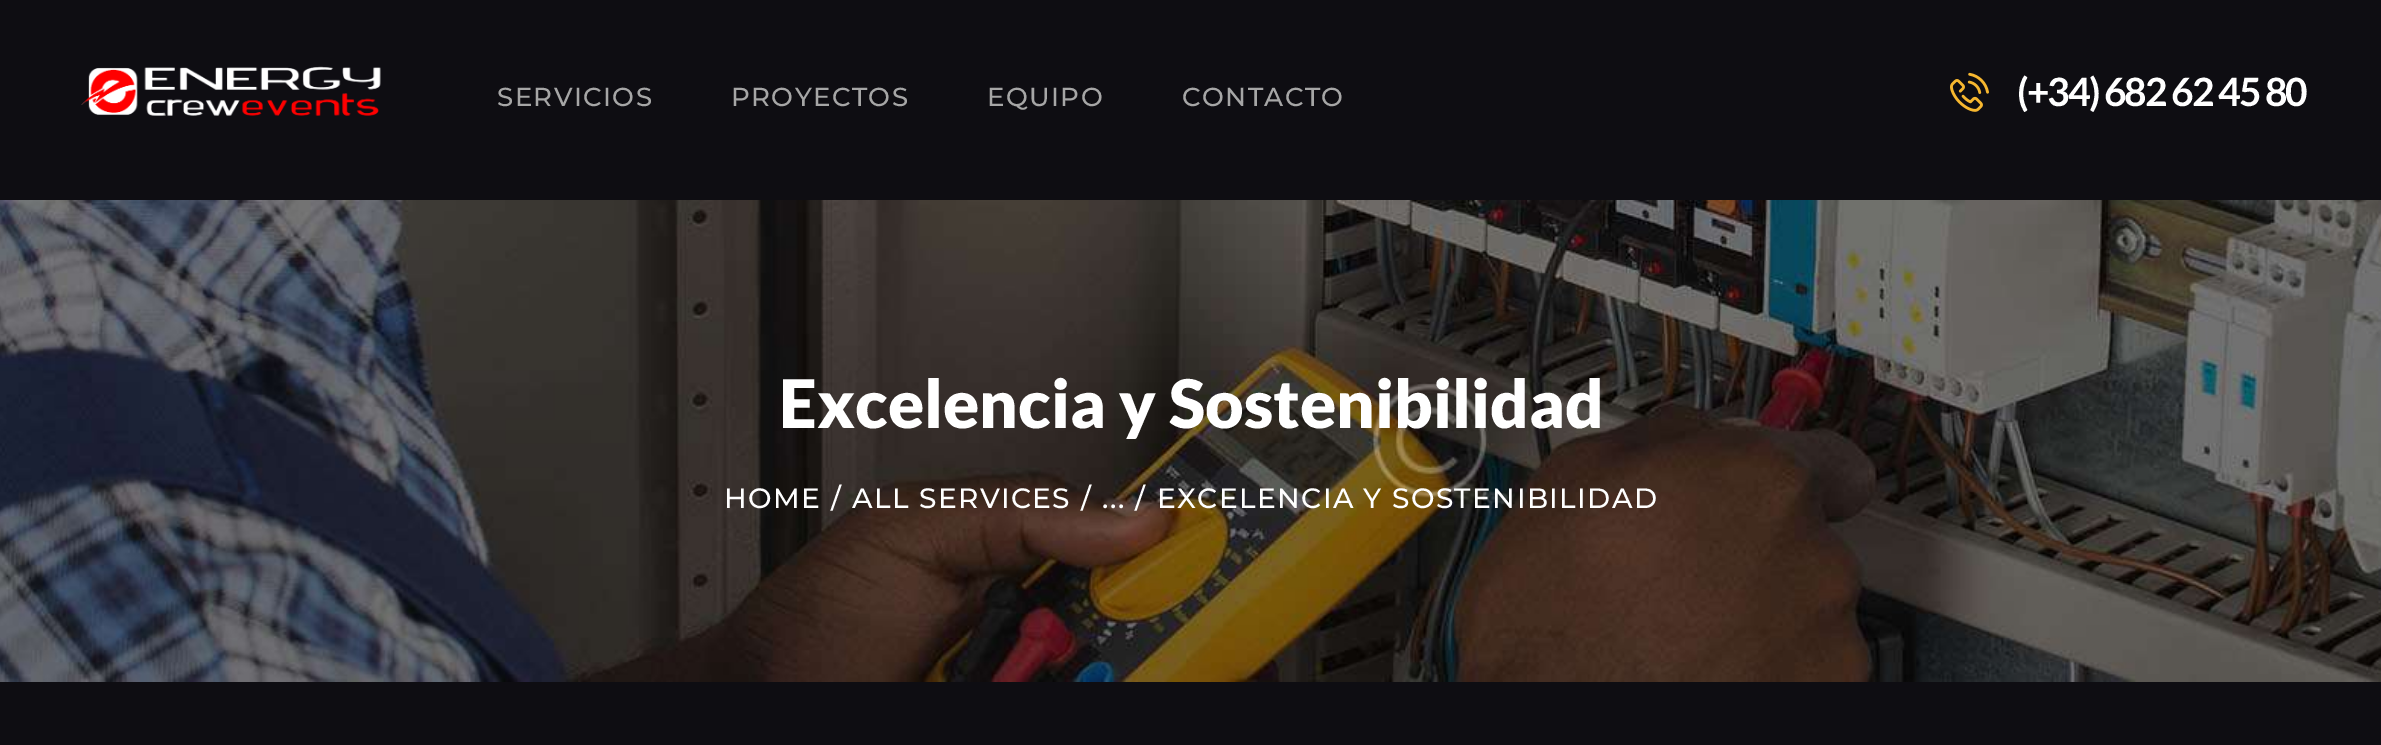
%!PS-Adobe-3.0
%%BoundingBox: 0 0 2381 745
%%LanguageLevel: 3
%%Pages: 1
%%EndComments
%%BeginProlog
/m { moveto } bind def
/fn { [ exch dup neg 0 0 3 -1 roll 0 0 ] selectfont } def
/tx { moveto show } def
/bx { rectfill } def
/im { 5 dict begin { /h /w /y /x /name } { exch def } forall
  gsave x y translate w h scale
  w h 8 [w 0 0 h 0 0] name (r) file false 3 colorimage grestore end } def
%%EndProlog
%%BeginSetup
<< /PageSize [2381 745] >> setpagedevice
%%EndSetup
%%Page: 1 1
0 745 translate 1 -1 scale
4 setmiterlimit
0.055 0.051 0.071 setrgbcolor
0 0 2381 745 bx
(image0.raw) 81 66 300 50 im
/Montserrat-Medium 26 fn
0.651 setgray
497 106 m 1.4 0 (SERVICIOS) ashow
731 106 m 1.4 0 (PROYECTOS) ashow
987 106 m 1.4 0 (EQUIPO) ashow
1182 106 m 1.4 0 (CONTACTO) ashow
(image1.raw) 1950 72 39 40 im
/Lato-Bold 39 fn
1 setgray
2017 106 m -2 0 (\(+34\) 682 62 45 80) ashow
(image2.raw) 0 200 2381 482 im
/Lato-Black 66.9 fn
(Excelencia y Sostenibilidad) 779 428 tx
/Montserrat-Medium 28 fn
724 508 m 1.4 0 (HOME) ashow
831 508 m 1.4 0 (/) ashow
852 508 m 1.4 0 (ALL SERVICES) ashow
1081 508 m 1.4 0 (/) ashow
1102 508 m 1.4 0 (...) ashow
1135 508 m 1.4 0 (/) ashow
1157 508 m 1.4 0 (EXCELENCIA Y SOSTENIBILIDAD) ashow
showpage
%%EOF
